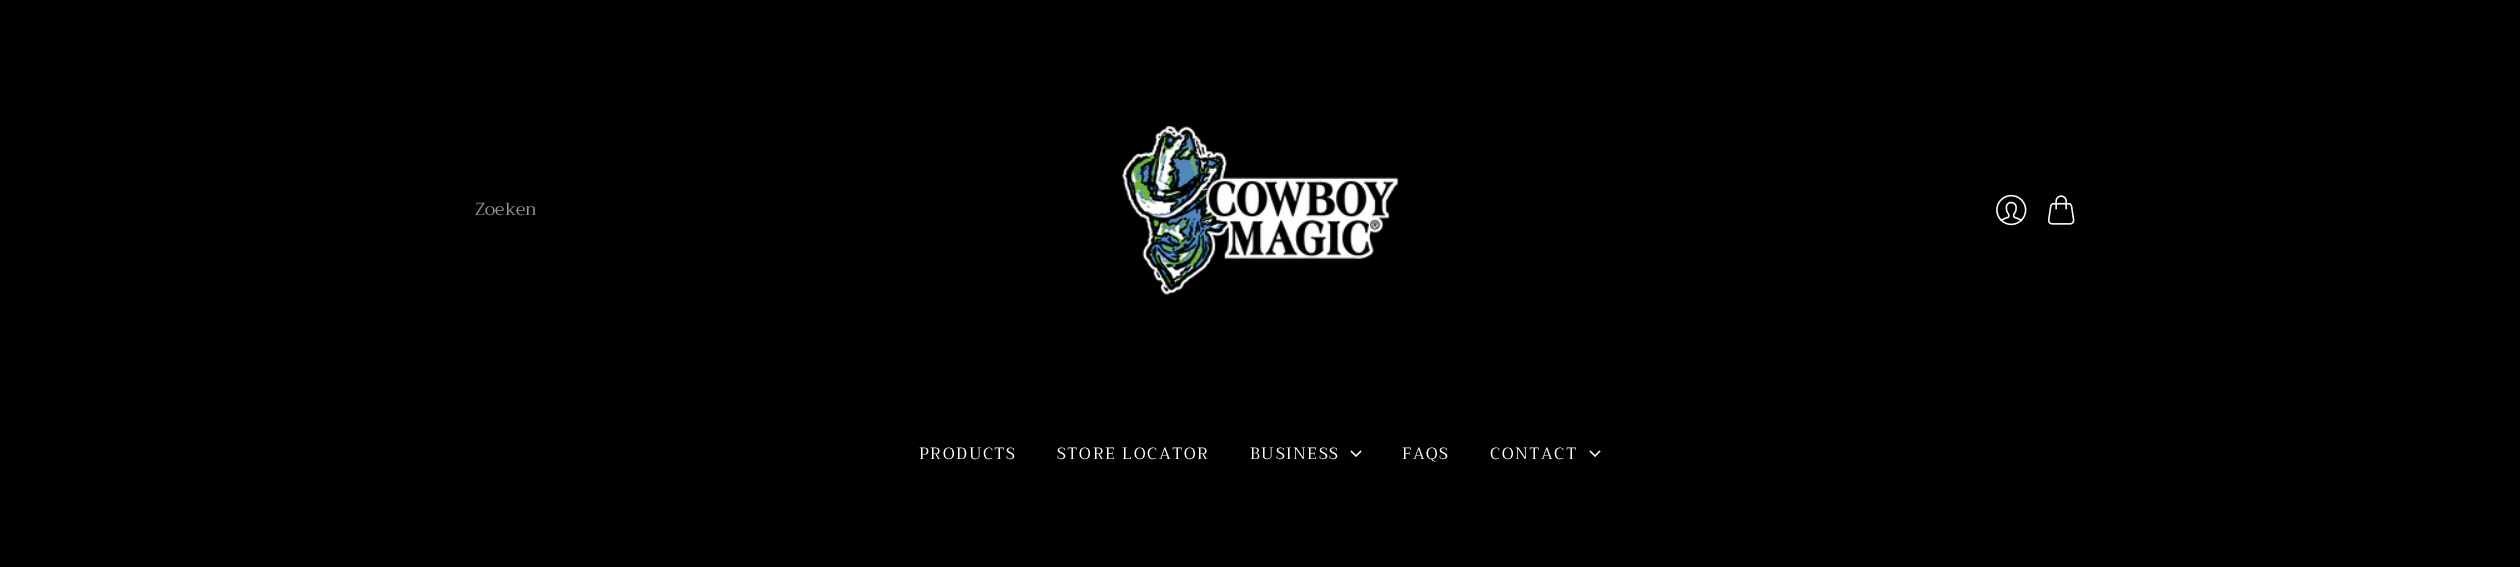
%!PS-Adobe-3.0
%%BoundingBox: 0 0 2520 567
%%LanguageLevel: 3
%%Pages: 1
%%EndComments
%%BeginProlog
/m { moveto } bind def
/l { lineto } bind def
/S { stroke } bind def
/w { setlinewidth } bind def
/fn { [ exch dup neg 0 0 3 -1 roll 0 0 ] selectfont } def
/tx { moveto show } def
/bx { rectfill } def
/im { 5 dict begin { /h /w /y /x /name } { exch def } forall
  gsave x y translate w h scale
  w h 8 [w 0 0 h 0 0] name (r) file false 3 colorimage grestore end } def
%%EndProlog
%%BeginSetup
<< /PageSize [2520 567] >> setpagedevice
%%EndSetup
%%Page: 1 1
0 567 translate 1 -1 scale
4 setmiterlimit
0 setgray
0 0 2520 567 bx
/Trirong-Regular 17.5 fn
0.6 setgray
(Zoeken) 475 215 tx
(image0.raw) 1996 194 31 32 im
(image1.raw) 2048 195 27 30 im
(image2.raw) 1122 125 277 171 im
/Trirong-Regular 16.25 fn
1 setgray
919 459 m 1.6 0 (PRODUCTS) ashow
1057 459 m 1.6 0 (STORE LOCATOR) ashow
1250 459 m 1.6 0 (BUSINESS) ashow
1.2 w
1351 451 m 1356 456 l 1361 451 l S
1402 459 m 1.6 0 (FAQS) ashow
1490 459 m 1.6 0 (CONTACT) ashow
1590 451 m 1595 456 l 1600 451 l S
showpage
%%EOF
